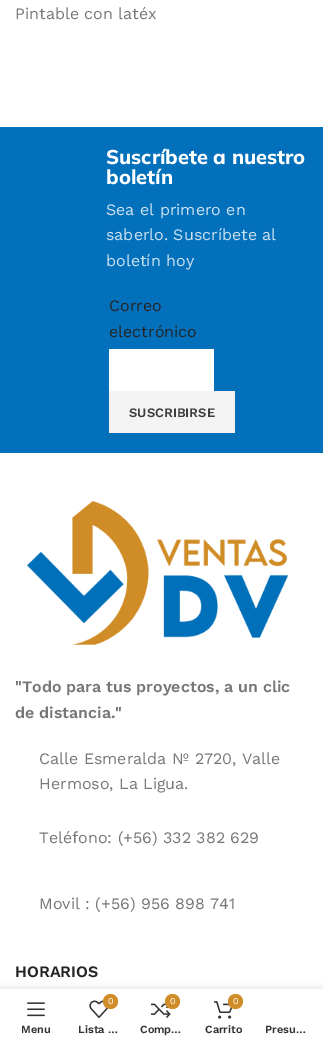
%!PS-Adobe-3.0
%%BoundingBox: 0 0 323 1044
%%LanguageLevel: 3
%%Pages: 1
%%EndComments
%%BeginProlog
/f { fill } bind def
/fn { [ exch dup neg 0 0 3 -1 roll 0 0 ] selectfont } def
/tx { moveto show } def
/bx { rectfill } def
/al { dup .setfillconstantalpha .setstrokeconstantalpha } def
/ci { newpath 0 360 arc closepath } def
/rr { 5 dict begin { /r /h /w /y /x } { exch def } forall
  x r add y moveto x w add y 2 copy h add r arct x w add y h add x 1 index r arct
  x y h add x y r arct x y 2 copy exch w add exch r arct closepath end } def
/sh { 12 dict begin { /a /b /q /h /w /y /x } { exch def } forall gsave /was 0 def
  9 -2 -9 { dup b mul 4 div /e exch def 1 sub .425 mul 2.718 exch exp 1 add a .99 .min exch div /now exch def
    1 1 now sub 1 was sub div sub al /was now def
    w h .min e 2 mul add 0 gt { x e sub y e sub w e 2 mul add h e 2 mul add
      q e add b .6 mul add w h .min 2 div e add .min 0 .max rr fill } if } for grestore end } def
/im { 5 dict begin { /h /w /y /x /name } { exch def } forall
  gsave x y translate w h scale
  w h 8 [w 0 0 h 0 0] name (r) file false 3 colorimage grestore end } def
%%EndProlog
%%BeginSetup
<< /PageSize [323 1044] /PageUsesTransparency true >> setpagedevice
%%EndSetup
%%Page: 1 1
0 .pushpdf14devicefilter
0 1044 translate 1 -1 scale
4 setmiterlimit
1 setgray
0 0 323 1044 bx
/WorkSans-Regular 16 fn
0.467 setgray
(Pintable con latéx) 15 19 tx
0.008 0.439 0.733 setrgbcolor
0 127 323 326 bx
/Mulish-ExtraBold 20 fn
1 setgray
(Suscríbete a nuestro) 106 164 tx
(boletín) 106 184 tx
/WorkSans-Regular 16 fn
0.8 0.886 0.945 setrgbcolor
(Sea el primero en) 106 215 tx
(saberlo. Suscríbete al) 106 240 tx
(boletín hoy) 106 266 tx
0.141 setgray
(Correo) 109 311 tx
(electrónico) 109 337 tx
1 setgray
109 349 105 42 bx
0.953 setgray
109 391 126 42 bx
/WorkSans-SemiBold 13 fn
0.243 setgray
(SUSCRIBIRSE) 129 417 tx
(image0.raw) 27 500 262 145 im
/WorkSans-SemiBold 16 fn
0.467 setgray
("Todo para tus proyectos, a un clic) 15 692 tx
(de distancia.") 15 718 tx
/WorkSans-Regular 16 fn
(Calle Esmeralda Nº 2720, Valle) 39 764 tx
(Hermoso, La Ligua.) 39 789 tx
(Teléfono: \(+56\) 332 382 629) 39 843 tx
(Movil : \(+56\) 956 898 741) 39 909 tx
/WorkSans-SemiBold 16 fn
0.141 setgray
(HORARIOS) 15 977 tx
0 setgray
0 989 323 55 0 4.5 0.12 sh
1 setgray
0 989 323 55 bx
(image1.raw) 27 1002 18 15 im
/WorkSans-SemiBold 11 fn
0.2 setgray
(Menu) 21 1033 tx
(image2.raw) 89 1000 20 18 im
0.816 0.549 0.153 setrgbcolor
110.5 1001.5 7.5 ci f
/WorkSans-Regular 9 fn
1 setgray
(0) 108 1004 tx
/WorkSans-SemiBold 11 fn
0.2 setgray
(Lista …) 78 1033 tx
(image3.raw) 151 1003 20 15 im
0.816 0.549 0.153 setrgbcolor
172.5 1001.5 7.5 ci f
/WorkSans-Regular 9 fn
1 setgray
(0) 170 1004 tx
/WorkSans-SemiBold 11 fn
0.2 setgray
(Comp…) 140 1033 tx
(image4.raw) 214 1001 19 18 im
0.816 0.549 0.153 setrgbcolor
235.5 1001.5 7.5 ci f
/WorkSans-Regular 9 fn
1 setgray
(0) 233 1004 tx
/WorkSans-SemiBold 11 fn
0.2 setgray
(Carrito) 205 1033 tx
(Presu…) 265 1033 tx
.poppdf14devicefilter showpage
%%EOF
